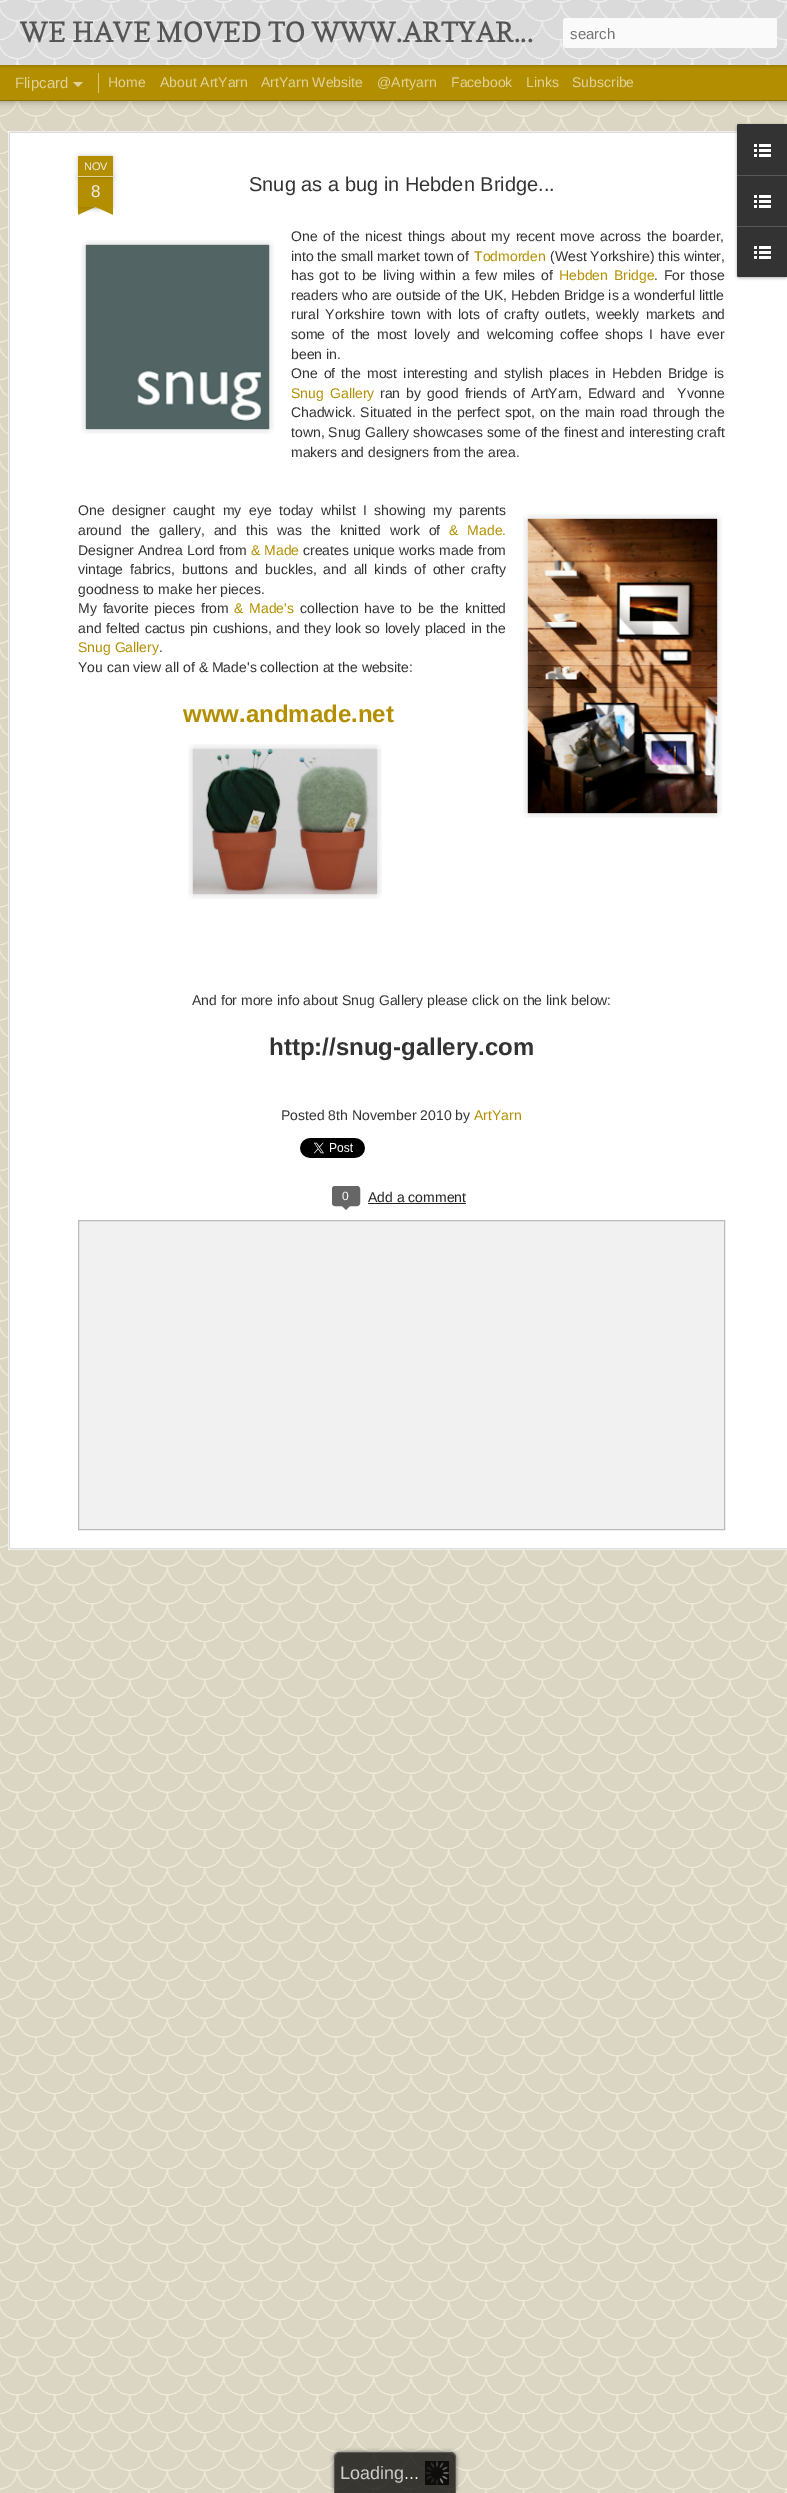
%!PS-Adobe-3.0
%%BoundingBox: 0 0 787 2493
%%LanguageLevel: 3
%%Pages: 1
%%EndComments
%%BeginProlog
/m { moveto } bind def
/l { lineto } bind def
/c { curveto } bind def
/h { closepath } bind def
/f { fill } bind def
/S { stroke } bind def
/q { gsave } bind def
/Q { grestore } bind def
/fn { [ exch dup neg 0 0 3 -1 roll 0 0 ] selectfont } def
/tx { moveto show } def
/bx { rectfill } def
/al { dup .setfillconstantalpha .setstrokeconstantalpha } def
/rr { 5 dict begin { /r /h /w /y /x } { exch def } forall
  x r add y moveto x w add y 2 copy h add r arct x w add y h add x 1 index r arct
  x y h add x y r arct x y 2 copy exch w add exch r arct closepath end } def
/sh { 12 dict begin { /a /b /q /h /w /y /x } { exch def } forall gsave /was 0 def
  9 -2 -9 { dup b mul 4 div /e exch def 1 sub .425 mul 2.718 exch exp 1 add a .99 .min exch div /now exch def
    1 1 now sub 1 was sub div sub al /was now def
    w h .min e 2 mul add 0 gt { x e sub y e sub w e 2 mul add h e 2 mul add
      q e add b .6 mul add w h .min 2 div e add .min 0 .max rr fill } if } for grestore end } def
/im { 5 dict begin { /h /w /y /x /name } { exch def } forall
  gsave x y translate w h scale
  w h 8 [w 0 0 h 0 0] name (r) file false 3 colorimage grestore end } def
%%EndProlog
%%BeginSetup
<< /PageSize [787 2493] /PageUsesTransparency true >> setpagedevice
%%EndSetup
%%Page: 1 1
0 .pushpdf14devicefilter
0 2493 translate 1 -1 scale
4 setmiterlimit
0.702 0.561 0 setrgbcolor
0 0 787 2493 bx
0.957 0.933 0.851 setrgbcolor
0 101 787 2392 bx
(image1.raw) 0 101 787 2392 im
0 setgray
0 65 787 35 0 4 0.5 sh
0.702 0.561 0 setrgbcolor
0 65 787 35 bx
0.851 0.78 0.502 setrgbcolor
98 73 1 20 bx
0 setgray
0 0 787 65 0 2.5 0.3 sh
0.953 setgray
0 0 787 65 bx
(image0.raw) 0 0 787 65 im
q
20 0 532 65 rectclip
/Copse-Regular 28 fn
0.333 setgray
(WE HAVE MOVED TO WWW.ARTYAR...) 20 42 tx
Q
0.98 setgray
563 18 214 30 3 rr f
/LiberationSans-Regular 15 fn
0.459 setgray
(search) 570 39 tx
0.882 0.824 0.6 setrgbcolor
(Flipcard) 15 88 tx
73 82 m 83 82 l 78 87 l h f
/LiberationSans-Regular 14 fn
(Home) 108 87 tx
(About ArtYarn) 160 87 tx
(ArtYarn Website) 261 87 tx
(@Artyarn) 377 87 tx
(Facebook) 451 87 tx
(Links) 526 87 tx
(Subscribe) 572 87 tx
1 setgray
8 131 779 1419 bx
(image2.raw) 8 131 779 1419 im
0 setgray
78 177 35 30 0 2.5 0.2 sh
0.702 0.561 0 setrgbcolor
78 177 35 30 bx
0 setgray
78 156 35 21 1 2.5 0.2 sh
0.702 0.561 0 setrgbcolor
79 156 m 112 156 l 112.5 156 113 156.5 113 157 c 113 177 l 78 177 l 78 157 l 78 156.5 78.5 156 79 156 c h f
0.882 0.824 0.6 setrgbcolor
78 176 35 1 bx
/LiberationSans-Regular 11 fn
0.933 setgray
(NOV) 84 170 tx
/LiberationSans-Regular 17 fn
(8) 91 197 tx
q
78 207 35 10 rectclip
0 setgray
69 197 50 10 0 2.5 0.2 sh
Q
q
78 207 35 10 rectclip
0.702 0.561 0 setrgbcolor
69 208 m 115 187 l 119 196 l 73 217 l h f
Q
q
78 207 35 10 rectclip
0 setgray
72 197 50 10 0 2.5 0.2 sh
Q
q
78 207 35 10 rectclip
0.702 0.561 0 setrgbcolor
76 187 m 122 208 l 118 217 l 72 196 l h f
Q
/LiberationSans-Regular 20 fn
0.2 setgray
(Snug as a bug in Hebden Bridge...) 249 191 tx
(image3.raw) 81 240 193 194 im
(image4.raw) 85 244 185 186 im
/LiberationSans-Regular 14 fn
291 241 m 1.75 0 32 (One of the nicest things about my recent move across the boarder,) widthshow
(into the small market town of) 291 261 tx
0.702 0.561 0 setrgbcolor
(Todmorden) 474 261 tx
0.2 setgray
(\(West Yorkshire\) this winter,) 550 261 tx
291 280 m 1.75 0 32 (has got to be living within a few miles of) widthshow
0.702 0.561 0 setrgbcolor
559 280 m 2 0 32 (Hebden Bridge) widthshow
0.2 setgray
654 280 m 1.75 0 32 (. For those) widthshow
(readers who are outside of the UK, Hebden Bridge is a wonderful little) 291 300 tx
291 319 m 2.5 0 32 (rural Yorkshire town with lots of crafty outlets, weekly markets and) widthshow
291 339 m 3 0 32 (some of the most lovely and welcoming coffee shops I have ever) widthshow
(been in.) 291 359 tx
291 378 m 2.25 0 32 (One of the most interesting and stylish places in Hebden Bridge is) widthshow
0.702 0.561 0 setrgbcolor
291 398 m 2.25 0 32 (Snug Gallery) widthshow
0.2 setgray
380 398 m 2.25 0 32 (ran by good friends of ArtYarn, Edward and  Yvonne) widthshow
291 417 m 1 0 32 (Chadwick. Situated in the perfect spot, on the main road through the) widthshow
291 437 m 0.1 0 32 (town, Snug Gallery showcases some of the finest and interesting craft) widthshow
(makers and designers from the area.) 291 457 tx
78 515 m 3.6 0 32 (One designer caught my eye today whilst I showing my parents) widthshow
78 535 m 5.25 0 32 (around the gallery, and this was the knitted work of) widthshow
0.702 0.561 0 setrgbcolor
449 535 m 5.25 0 32 (& Made.) widthshow
0.2 setgray
(Designer Andrea Lord from) 78 555 tx
0.702 0.561 0 setrgbcolor
(& Made) 251 555 tx
0.2 setgray
(creates unique works made from) 303 555 tx
78 574 m 3 0 32 (vintage fabrics, buttons and buckles, and all kinds of other crafty) widthshow
(goodness to make her pieces.) 78 594 tx
78 613 m 2 0 32 (My favorite pieces from) widthshow
0.702 0.561 0 setrgbcolor
234 613 m 2 0 32 (& Made's) widthshow
0.2 setgray
300 613 m 2 0 32 (collection have to be the knitted) widthshow
78 633 m 0.6 0 32 (and felted cactus pin cushions, and they look so lovely placed in the) widthshow
0.702 0.561 0 setrgbcolor
(Snug Gallery) 78 652 tx
0.2 setgray
(.) 159 652 tx
(You can view all of & Made's collection at the website:) 78 672 tx
/LiberationSans-Bold 24 fn
0.702 0.561 0 setrgbcolor
(www.andmade.net) 183 722 tx
(image5.raw) 188 744 194 155 im
(image6.raw) 192 748 186 147 im
/LiberationSans-Regular 14 fn
0.2 setgray
(And for more info about Snug Gallery please click on the link below:) 192 1005 tx
/LiberationSans-Bold 24 fn
(http://snug-gallery.com) 269 1055 tx
(image7.raw) 523 514 199 304 im
(image8.raw) 527 518 191 296 im
/LiberationSans-Regular 14 fn
(Posted 8th November 2010 by) 281 1120 tx
0.702 0.561 0 setrgbcolor
(ArtYarn) 474 1120 tx
(image9.raw) 300 1138 65 20 im
0.4 setgray
332.5 1186.5 27 19 2.5 rr q f Q
S
/LiberationSans-Regular 12 fn
1 setgray
(0) 342 1200 tx
0.4 setgray
341 1205 m 351 1205 l 346 1210 l h f
/LiberationSans-Regular 14 fn
0.133 setgray
(Add a comment) 368 1202 tx
368 1203 98 1 bx
0.945 setgray
78.5 1220.5 m 724.5 1220.5 l 724.5 1529.5 l 78.5 1529.5 l h q f Q
0.733 setgray
S
0 setgray
737 125 50 153 2 1.5 0.3 sh
0.2 setgray
739 124 m 787 124 l 787 277 l 739 277 l 738 277 737 276 737 275 c 737 126 l 737 125 738 124 739 124 c h f
739 124 m 787 124 l 787 175 l 737 175 l 737 126 l 737 125 738 124 739 124 c h f
(image10.raw) 754 144 17 13 im
0.345 setgray
737 175 50 1 bx
(image10.raw) 754 195 17 13 im
0.2 setgray
737 226 m 787 226 l 787 277 l 739 277 l 738 277 737 276 737 275 c h f
0.345 setgray
737 226 50 1 bx
(image10.raw) 754 246 17 13 im
q
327 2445 m 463 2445 l 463 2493 l 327 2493 l h 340 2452 m 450 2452 l 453.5 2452 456 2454.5 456 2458 c 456 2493 l 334 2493 l 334 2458 l 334 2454.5 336.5 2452 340 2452 c h eoclip newpath
0.2 setgray
334 2452 122 41 6 2 0.75 sh
Q
0.75 al
0 setgray
340 2452 m 450 2452 l 453.5 2452 456 2454.5 456 2458 c 456 2493 l 334 2493 l 334 2458 l 334 2454.5 336.5 2452 340 2452 c h f
0.4 setgray
340 2452 m 450 2452 l 453 2452 456 2455 456 2458 c 456 2493 l 334 2493 l 334 2458 l 334 2455 337 2452 340 2452 c h 340 2453 m 450 2453 l 453 2453 455 2455 455 2458 c 455 2493 l 335 2493 l 335 2458 l 335 2455 337 2453 340 2453 c h eofill
1 al
(image11.raw) 425 2461 24 24 im
/LiberationSans-Regular 18 fn
0.804 0.804 0.8 setrgbcolor
(Loading) 340 2479 tx
0.965 0.961 0.941 setrgbcolor
(...) 404 2479 tx
.poppdf14devicefilter showpage
%%EOF
